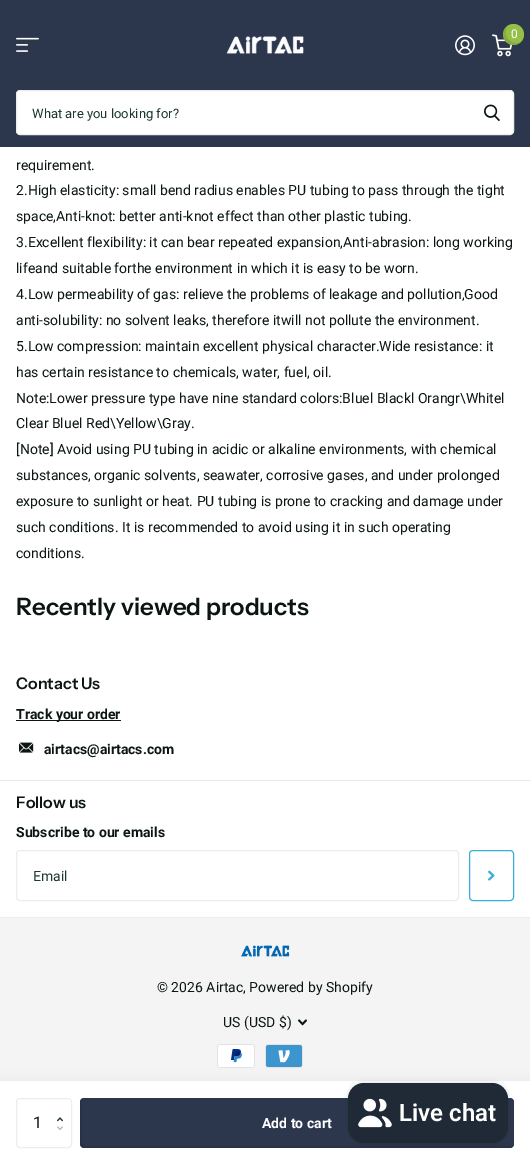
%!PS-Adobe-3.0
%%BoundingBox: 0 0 530 1164
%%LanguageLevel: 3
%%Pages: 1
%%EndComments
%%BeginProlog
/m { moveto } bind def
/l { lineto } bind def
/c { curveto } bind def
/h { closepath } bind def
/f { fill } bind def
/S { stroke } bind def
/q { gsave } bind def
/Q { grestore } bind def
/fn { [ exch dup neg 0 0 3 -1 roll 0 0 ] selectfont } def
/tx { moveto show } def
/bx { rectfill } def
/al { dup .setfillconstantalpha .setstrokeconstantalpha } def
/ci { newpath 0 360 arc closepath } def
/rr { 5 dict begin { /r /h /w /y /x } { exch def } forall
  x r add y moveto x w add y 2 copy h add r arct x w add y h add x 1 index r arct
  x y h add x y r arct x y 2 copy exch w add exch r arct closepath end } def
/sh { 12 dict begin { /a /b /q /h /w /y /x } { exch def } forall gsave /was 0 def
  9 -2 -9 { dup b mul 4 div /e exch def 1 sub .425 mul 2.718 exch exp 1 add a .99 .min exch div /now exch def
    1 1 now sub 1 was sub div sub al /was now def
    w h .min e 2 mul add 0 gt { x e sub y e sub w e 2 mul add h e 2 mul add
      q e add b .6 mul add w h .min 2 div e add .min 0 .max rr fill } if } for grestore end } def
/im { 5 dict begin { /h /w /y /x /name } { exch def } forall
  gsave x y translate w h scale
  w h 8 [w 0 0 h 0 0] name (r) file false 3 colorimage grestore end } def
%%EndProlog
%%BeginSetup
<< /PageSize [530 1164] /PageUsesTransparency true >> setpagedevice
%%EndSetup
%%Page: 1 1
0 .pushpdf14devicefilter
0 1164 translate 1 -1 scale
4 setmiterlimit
1 setgray
0 0 530 1164 bx
0.173 0.216 0.302 setrgbcolor
0 0 530 147 bx
(image0.raw) 492 34 21 23 im
0.584 0.749 0.278 setrgbcolor
513.5 34.5 10.5 ci f
0.1 al
0 setgray
521.5 41.5 m 512 47.5 500.5 35 508 25.5 c 502.5 29.5 501.5 37 506 42 c 510.5 46 517.5 46 521.5 41.5 c h f
/Roboto-Regular 12 fn
1 al
1 setgray
(0) 511 38 tx
(image1.raw) 455 35 20 21 im
(image2.raw) 16 37 23 15 im
(image3.raw) 226 36 78 18 im
16.5 90.5 497 44 3.5 rr q f Q
0.925 0.929 0.925 setrgbcolor
S
/Roboto-Regular 13 fn
0.11 0.22 0.188 setrgbcolor
(What are you looking for?) 32 118 tx
(image4.raw) 484 104 16 17 im
/Roboto-Regular 14 fn
0.043 0.086 0.075 setrgbcolor
(requirement.) 16 170 tx
(2.High elasticity: small bend radius enables PU tubing to pass through the tight) 16 195 tx
(space,Anti-knot: better anti-knot effect than other plastic tubing.) 16 221 tx
(3.Excellent flexibility: it can bear repeated expansion,Anti-abrasion: long working) 16 247 tx
(lifeand suitable forthe environment in which it is easy to be worn.) 16 273 tx
(4.Low permeability of gas: relieve the problems of leakage and pollution,Good) 16 299 tx
(anti-solubility: no solvent leaks, therefore itwill not pollute the environment.) 16 325 tx
(5.Low compression: maintain excellent physical character.Wide resistance: it) 16 351 tx
(has certain resistance to chemicals, water, fuel, oil.) 16 377 tx
(Note:Lower pressure type have nine standard colors:Bluel Blackl Orangr\\Whitel) 16 403 tx
(Clear Bluel Red\\Yellow\\Gray.) 16 428 tx
([Note] Avoid using PU tubing in acidic or alkaline environments, with chemical) 16 454 tx
(substances, organic solvents, seawater, corrosive gases, and under prolonged) 16 480 tx
(exposure to sunlight or heat. PU tubing is prone to cracking and damage under) 16 506 tx
(such conditions. It is recommended to avoid using it in such operating) 16 532 tx
(conditions.) 16 558 tx
/InstrumentSans-SemiBold 24 fn
(Recently viewed products) 16 615 tx
/InstrumentSans-SemiBold 16 fn
(Contact Us) 16 689 tx
16 720 105 1 bx
/Roboto-Bold 14 fn
(Track your order) 16 719 tx
(image5.raw) 19 742 15 11 im
(airtacs@airtacs.com) 44 754 tx
0.906 0.91 0.906 setrgbcolor
0 780 530 1 bx
/InstrumentSans-SemiBold 16 fn
0.043 0.086 0.075 setrgbcolor
(Follow us) 16 808 tx
/Roboto-Bold 14 fn
(Subscribe to our emails) 16 837 tx
0.925 0.929 0.925 setrgbcolor
16.5 850.5 442 50 3.5 rr S
/Roboto-Regular 14 fn
0.11 0.22 0.188 setrgbcolor
(Email) 33 881 tx
0.227 0.69 0.847 setrgbcolor
469.5 850.5 44 50 3.5 rr S
(image6.raw) 488 870 7 11 im
0.957 setgray
0 918 530 163 bx
0.925 0.929 0.925 setrgbcolor
0 917 530 1 bx
(image7.raw) 241 945 49 12 im
0.043 0.086 0.075 setrgbcolor
(© 2026 Airtac, Powered by Shopify) 157 992 tx
(US \(USD $\)) 223 1027 tx
(image8.raw) 298 1019 9 7 im
(image9.raw) 217 1044 38 24 im
(image10.raw) 265 1044 38 24 im
0 setgray
-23 1078 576 83 0 7.5 0.04 sh
1 setgray
0 1081 530 83 bx
0.925 0.929 0.925 setrgbcolor
16.5 1098.5 55 49 3.5 rr S
/Roboto-Regular 16 fn
0.043 0.086 0.075 setrgbcolor
(1) 33 1128 tx
(image11.raw) 57 1117 6 5 im
(image12.raw) 57 1126 6 5 im
0.173 0.216 0.302 setrgbcolor
80 1098 434 50 4 rr f
0.1 al
0 setgray
82 1098 m 81 1099 80 1100 80 1102 c 80 1144 l 80 1146 82 1148 84 1148 c 510 1148 l 512 1148 513 1147 514 1146 c 512 1146 l 86 1146 l 84 1146 82 1144 82 1142 c 82 1100 l h f
/Roboto-Bold 14 fn
1 al
1 setgray
(Add to cart) 262 1128 tx
0 setgray
348 1083 160 60 16 2.5 0.15 sh
0.125 0.165 0.212 setrgbcolor
348 1083 160 60 16 rr f
(image13.raw) 358 1098 34 30 im
/Roboto-SemiBold 24 fn
1 setgray
(Live chat) 399 1121 tx
.poppdf14devicefilter showpage
%%EOF
